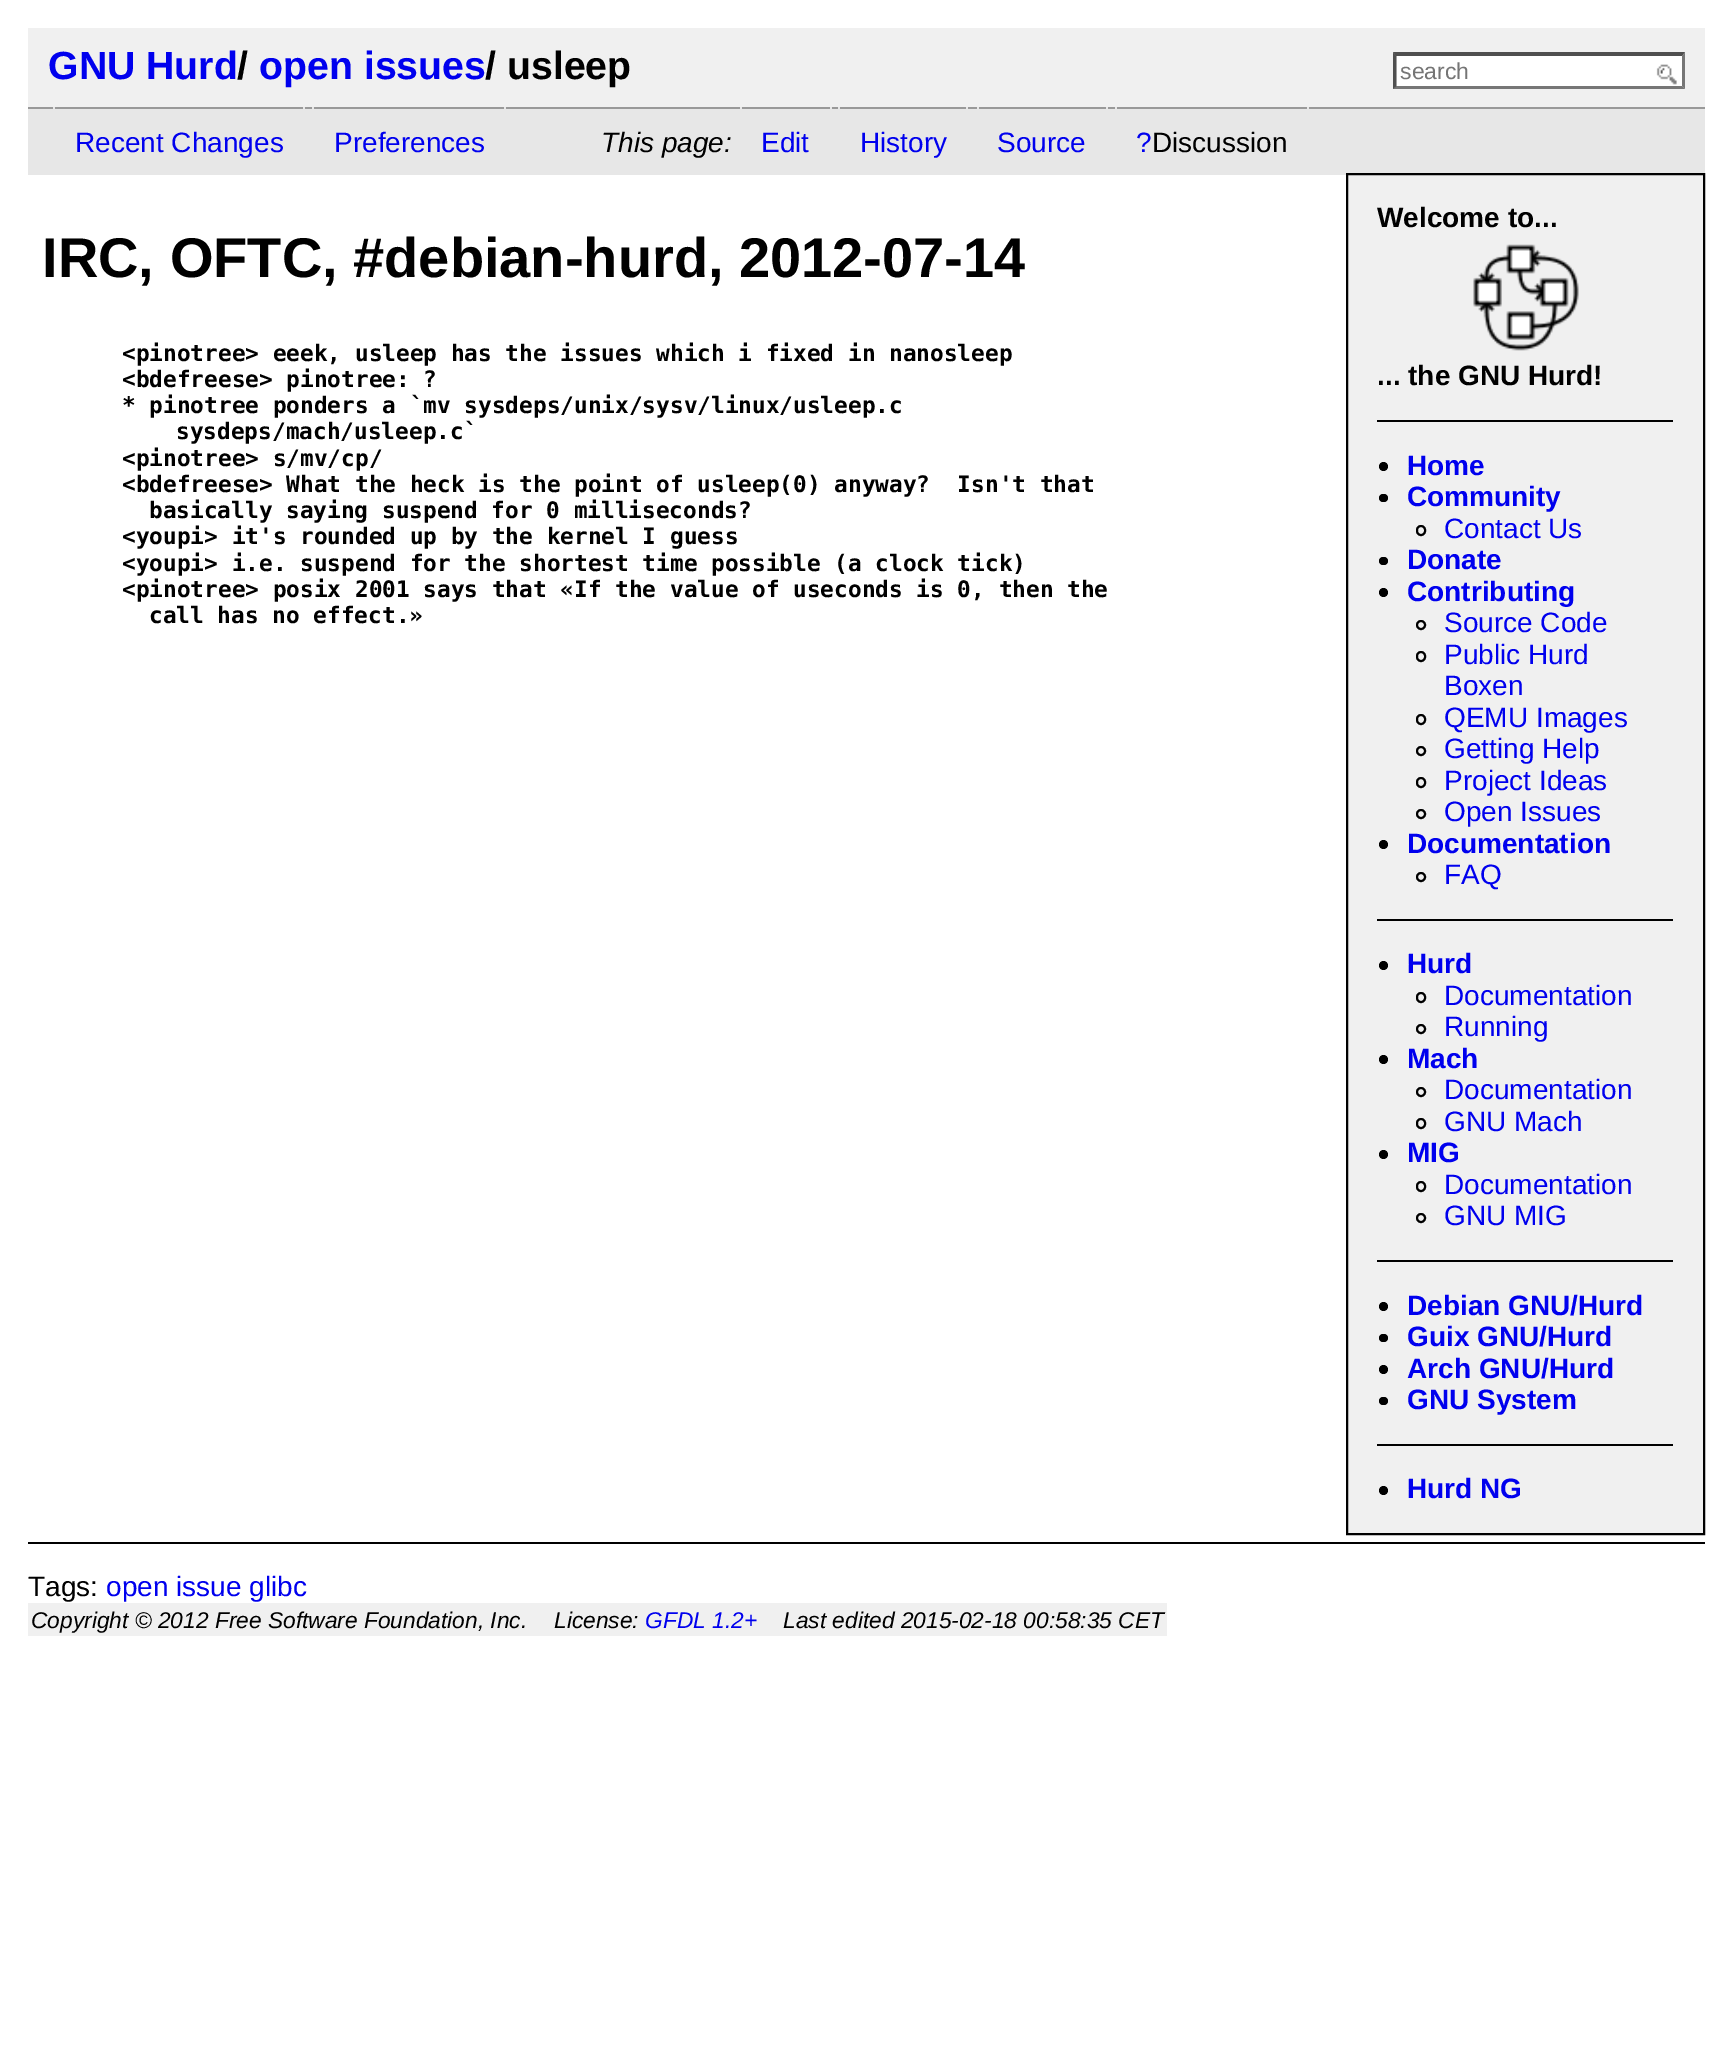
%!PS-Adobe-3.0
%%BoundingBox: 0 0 1732 2053
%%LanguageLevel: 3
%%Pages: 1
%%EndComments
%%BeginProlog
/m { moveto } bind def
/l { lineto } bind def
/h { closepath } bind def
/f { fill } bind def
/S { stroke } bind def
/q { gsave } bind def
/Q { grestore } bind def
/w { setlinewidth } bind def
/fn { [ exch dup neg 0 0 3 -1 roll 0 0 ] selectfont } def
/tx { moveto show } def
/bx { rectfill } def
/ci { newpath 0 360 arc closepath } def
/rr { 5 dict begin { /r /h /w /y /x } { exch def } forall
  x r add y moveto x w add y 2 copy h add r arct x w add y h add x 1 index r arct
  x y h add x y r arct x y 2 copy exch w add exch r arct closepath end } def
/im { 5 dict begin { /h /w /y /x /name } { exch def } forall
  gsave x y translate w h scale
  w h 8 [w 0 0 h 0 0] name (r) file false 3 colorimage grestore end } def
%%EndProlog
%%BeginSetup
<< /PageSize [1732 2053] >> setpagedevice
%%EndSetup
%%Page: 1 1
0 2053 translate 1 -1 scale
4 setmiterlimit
1 setgray
0 0 1732 2053 bx
0.941 setgray
28 28 1677 79 bx
/LiberationSans-Bold 39.25 fn
0 0 0.933 setrgbcolor
(GNU Hurd) 48 79 tx
0 setgray
(/) 237 79 tx
0 0 0.933 setrgbcolor
(open issues) 259 79 tx
0 setgray
(/ usleep) 485 79 tx
1 setgray
1393 53 292 36 bx
(image0.raw) 1656 64 21 21 im
0.31 setgray
1393 52 m 1685 52 l 1682 56 l 1396 56 l h f
0.463 setgray
1685 52.5 m 1685 89 l 1682 86 l 1682 56 l h f
1685 89 m 1393 89 l 1396 86 l 1682 86 l h f
0.31 setgray
1393 89 m 1393 52.5 l 1396.5 56 l 1396.5 86 l h f
/LiberationSans-Regular 23 fn
0.459 setgray
(search) 1400 79 tx
0.906 setgray
28 109 1677 66 bx
0.6 setgray
28 107 1677 2 bx
/LiberationSans-Regular 28 fn
0 0 0.933 setrgbcolor
(Recent Changes) 75 152 tx
0.906 setgray
303 107 2 2 bx
53 107 2 2 bx
0 0 0.933 setrgbcolor
(Preferences) 334 152 tx
0.906 setgray
504 107 2 2 bx
312 107 2 2 bx
/LiberationSans-Italic 28 fn
0 setgray
(This page:) 601 152 tx
/LiberationSans-Regular 28 fn
0 0 0.933 setrgbcolor
(Edit) 761 152 tx
0.906 setgray
830 107 2 2 bx
740 107 2 2 bx
0 0 0.933 setrgbcolor
(History) 860 152 tx
0.906 setgray
966 107 2 2 bx
838 107 2 2 bx
0 0 0.933 setrgbcolor
(Source) 997 152 tx
0.906 setgray
1106 107 2 2 bx
977 107 2 2 bx
0 0 0.933 setrgbcolor
(?) 1136 152 tx
0.906 setgray
1115 107 2 2 bx
0 setgray
(Discussion) 1152 152 tx
0.906 setgray
1307 107 2 2 bx
/LiberationSans-Bold 56 fn
0 setgray
(IRC, OFTC, #debian-hurd, 2012-07-14) 42 277 tx
/DejaVuSansMono-Bold 22.75 fn
(<pinotree> eeek, usleep has the issues which i fixed in nanosleep) 122 361 tx
(<bdefreese> pinotree: ?) 122 387 tx
(* pinotree ponders a `mv sysdeps/unix/sysv/linux/usleep.c) 122 413 tx
(sysdeps/mach/usleep.c`) 176 439 tx
(<pinotree> s/mv/cp/) 122 466 tx
(<bdefreese> What the heck is the point of usleep\(0\) anyway?  Isn't that) 122 492 tx
(basically saying suspend for 0 milliseconds?) 149 518 tx
(<youpi> it's rounded up by the kernel I guess) 122 544 tx
(<youpi> i.e. suspend for the shortest time possible \(a clock tick\)) 122 571 tx
(<pinotree> posix 2001 says that «If the value of useconds is 0, then the) 122 597 tx
(call has no effect.») 149 623 tx
0.941 setgray
1347 174 m 1704 174 l 1704 1534 l 1347 1534 l h q f Q
0 setgray
2 w
S
/LiberationSans-Bold 28 fn
(Welcome to...) 1377 227 tx
(image1.raw) 1473 244 106 107 im
(... the GNU Hurd!) 1377 385 tx
1377 420 296 2 bx
1383.5 466.5 4.5 ci f
0 0 0.933 setrgbcolor
(Home) 1407 475 tx
0 setgray
1379 494 9 8 4 rr f
0 0 0.933 setrgbcolor
(Community) 1407 506 tx
0 setgray
1417 526 8 9 4 rr S
/LiberationSans-Regular 28 fn
0 0 0.933 setrgbcolor
(Contact Us) 1444 538 tx
0 setgray
1379 557 9 8 4 rr f
/LiberationSans-Bold 28 fn
0 0 0.933 setrgbcolor
(Donate) 1407 569 tx
0 setgray
1383.5 592.5 4.5 ci f
0 0 0.933 setrgbcolor
(Contributing) 1407 601 tx
0 setgray
1421 625 4 ci S
/LiberationSans-Regular 28 fn
0 0 0.933 setrgbcolor
(Source Code) 1444 632 tx
0 setgray
1417 652 8 9 4 rr S
0 0 0.933 setrgbcolor
(Public Hurd) 1444 664 tx
(Boxen) 1444 695 tx
0 setgray
1417 715 8 9 4 rr S
0 0 0.933 setrgbcolor
(QEMU Images) 1444 727 tx
0 setgray
1421 751 4 ci S
0 0 0.933 setrgbcolor
(Getting Help) 1444 758 tx
0 setgray
1417 778 8 9 4 rr S
0 0 0.933 setrgbcolor
(Project Ideas) 1444 790 tx
0 setgray
1421 814 4 ci S
0 0 0.933 setrgbcolor
(Open Issues) 1444 821 tx
0 setgray
1383.5 844.5 4.5 ci f
/LiberationSans-Bold 28 fn
0 0 0.933 setrgbcolor
(Documentation) 1407 853 tx
0 setgray
1421 877 4 ci S
/LiberationSans-Regular 28 fn
0 0 0.933 setrgbcolor
(FAQ) 1444 884 tx
0 setgray
1377 919 296 2 bx
1383.5 965.5 4.5 ci f
/LiberationSans-Bold 28 fn
0 0 0.933 setrgbcolor
(Hurd) 1407 973 tx
0 setgray
1417 993 8 9 4 rr S
/LiberationSans-Regular 28 fn
0 0 0.933 setrgbcolor
(Documentation) 1444 1005 tx
0 setgray
1421 1029 4 ci S
0 0 0.933 setrgbcolor
(Running) 1444 1036 tx
0 setgray
1383.5 1059.5 4.5 ci f
/LiberationSans-Bold 28 fn
0 0 0.933 setrgbcolor
(Mach) 1407 1068 tx
0 setgray
1421 1092 4 ci S
/LiberationSans-Regular 28 fn
0 0 0.933 setrgbcolor
(Documentation) 1444 1099 tx
0 setgray
1417 1119 8 9 4 rr S
0 0 0.933 setrgbcolor
(GNU Mach) 1444 1131 tx
0 setgray
1383.5 1154.5 4.5 ci f
/LiberationSans-Bold 28 fn
0 0 0.933 setrgbcolor
(MIG) 1407 1162 tx
0 setgray
1417 1182 8 9 4 rr S
/LiberationSans-Regular 28 fn
0 0 0.933 setrgbcolor
(Documentation) 1444 1194 tx
0 setgray
1421 1218 4 ci S
0 0 0.933 setrgbcolor
(GNU MIG) 1444 1225 tx
0 setgray
1377 1260 296 2 bx
1383.5 1306.5 4.5 ci f
/LiberationSans-Bold 28 fn
0 0 0.933 setrgbcolor
(Debian GNU/Hurd) 1407 1315 tx
0 setgray
1379 1334 9 8 4 rr f
0 0 0.933 setrgbcolor
(Guix GNU/Hurd) 1407 1346 tx
0 setgray
1383.5 1369.5 4.5 ci f
0 0 0.933 setrgbcolor
(Arch GNU/Hurd) 1407 1378 tx
0 setgray
1379 1397 9 8 4 rr f
0 0 0.933 setrgbcolor
(GNU System) 1407 1409 tx
0 setgray
1377 1444 296 2 bx
1383.5 1490.5 4.5 ci f
0 0 0.933 setrgbcolor
(Hurd NG) 1407 1498 tx
0 setgray
28 1542 1677 2 bx
/LiberationSans-Regular 28 fn
(Tags:) 28 1596 tx
0 0 0.933 setrgbcolor
(open issue glibc) 106 1596 tx
0.941 setgray
28 1603 1139 33 bx
/LiberationSans-Italic 22.75 fn
0 setgray
(Copyright © 2012 Free Software Foundation, Inc.) 31 1628 tx
(License:) 554 1628 tx
0 0 0.933 setrgbcolor
(GFDL 1.2+) 645 1628 tx
0 setgray
(Last edited 2015-02-18 00:58:35 CET) 783 1628 tx
showpage
%%EOF
